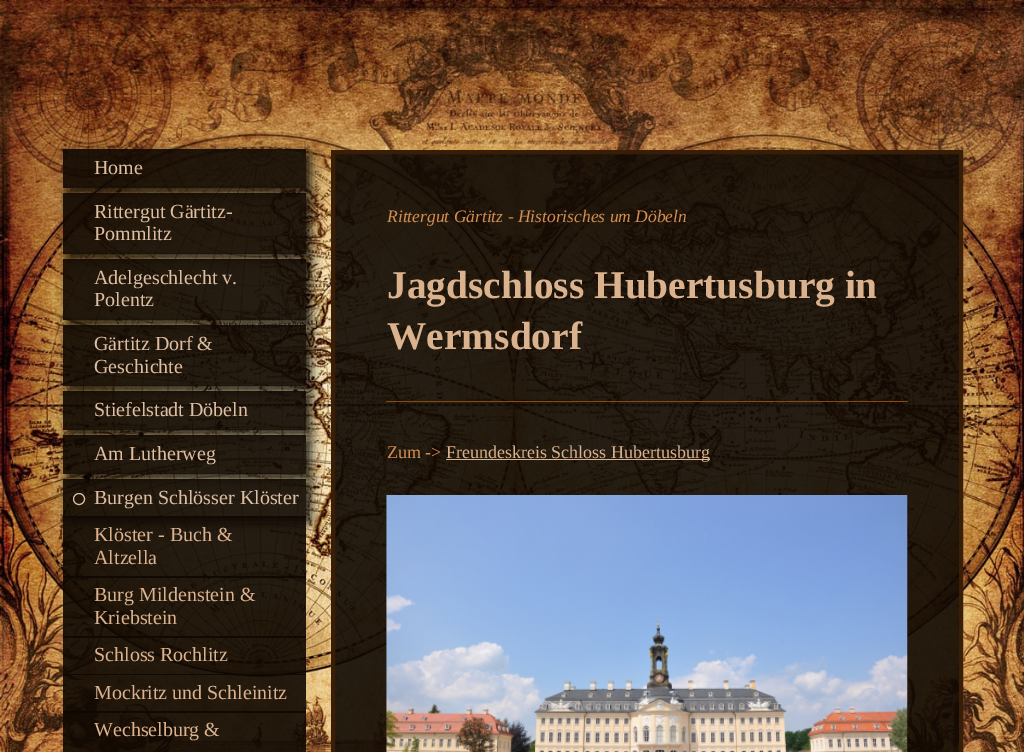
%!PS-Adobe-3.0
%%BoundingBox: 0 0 1024 752
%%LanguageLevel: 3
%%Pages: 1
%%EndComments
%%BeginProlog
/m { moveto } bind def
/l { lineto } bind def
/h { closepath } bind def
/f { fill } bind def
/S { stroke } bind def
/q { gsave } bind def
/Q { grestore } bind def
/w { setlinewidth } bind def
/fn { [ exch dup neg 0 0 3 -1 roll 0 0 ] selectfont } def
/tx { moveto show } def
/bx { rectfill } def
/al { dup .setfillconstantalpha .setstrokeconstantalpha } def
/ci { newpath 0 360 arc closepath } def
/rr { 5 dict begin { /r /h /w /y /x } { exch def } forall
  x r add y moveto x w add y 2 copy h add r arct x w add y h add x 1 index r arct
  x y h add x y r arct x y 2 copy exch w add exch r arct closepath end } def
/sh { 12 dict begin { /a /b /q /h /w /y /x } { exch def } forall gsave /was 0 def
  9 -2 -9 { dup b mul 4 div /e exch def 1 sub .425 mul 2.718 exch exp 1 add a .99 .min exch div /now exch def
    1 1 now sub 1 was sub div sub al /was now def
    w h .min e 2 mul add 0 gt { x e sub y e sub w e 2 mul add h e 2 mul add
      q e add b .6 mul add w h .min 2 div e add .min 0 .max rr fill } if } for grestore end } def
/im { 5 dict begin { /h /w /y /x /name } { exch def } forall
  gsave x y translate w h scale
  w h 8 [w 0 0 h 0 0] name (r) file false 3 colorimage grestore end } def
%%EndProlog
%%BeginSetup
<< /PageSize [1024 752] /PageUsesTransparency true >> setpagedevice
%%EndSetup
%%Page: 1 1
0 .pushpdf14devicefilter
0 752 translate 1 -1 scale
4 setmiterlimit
1 setgray
0 0 1024 752 bx
(image0.raw) 0 0 1024 752 im
q
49 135 m 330 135 l 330 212 l 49 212 l h 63 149 m 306 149 l 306 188 l 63 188 l h eoclip newpath
0 setgray
68 154 243 39 0 6 0.9 sh
Q
0.9 al
0.059 0.031 0.008 setrgbcolor
63 149 243 39 bx
0.1 al
0 setgray
63 186 243 1 bx
/LiberationSerif-Regular 20 fn
1 al
0.871 0.745 0.635 setrgbcolor
(Home) 94 174 tx
q
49 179 m 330 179 l 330 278 l 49 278 l h 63 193 m 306 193 l 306 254 l 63 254 l h eoclip newpath
0 setgray
68 198 243 61 0 6 0.9 sh
Q
0.9 al
0.059 0.031 0.008 setrgbcolor
63 193 243 61 bx
0.1 al
0 setgray
63 253 243 1 bx
1 al
0.871 0.745 0.635 setrgbcolor
(Rittergut Gärtitz-) 94 218 tx
(Pommlitz) 94 240 tx
q
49 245 m 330 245 l 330 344 l 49 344 l h 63 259 m 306 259 l 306 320 l 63 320 l h eoclip newpath
0 setgray
68 264 243 61 0 6 0.9 sh
Q
0.9 al
0.059 0.031 0.008 setrgbcolor
63 259 243 61 bx
0.1 al
0 setgray
63 319 243 1 bx
1 al
0.871 0.745 0.635 setrgbcolor
(Adelgeschlecht v.) 94 284 tx
(Polentz) 94 306 tx
q
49 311 m 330 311 l 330 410 l 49 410 l h 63 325 m 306 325 l 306 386 l 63 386 l h eoclip newpath
0 setgray
68 330 243 61 0 6 0.9 sh
Q
0.9 al
0.059 0.031 0.008 setrgbcolor
63 325 243 61 bx
0.1 al
0 setgray
63 385 243 1 bx
1 al
0.871 0.745 0.635 setrgbcolor
(Gärtitz Dorf &) 94 350 tx
(Geschichte) 94 373 tx
q
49 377 m 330 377 l 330 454 l 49 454 l h 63 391 m 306 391 l 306 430 l 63 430 l h eoclip newpath
0 setgray
68 396 243 39 0 6 0.9 sh
Q
0.9 al
0.059 0.031 0.008 setrgbcolor
63 391 243 39 bx
0.1 al
0 setgray
63 429 243 1 bx
1 al
0.871 0.745 0.635 setrgbcolor
(Stiefelstadt Döbeln) 94 416 tx
q
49 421 m 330 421 l 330 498 l 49 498 l h 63 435 m 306 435 l 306 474 l 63 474 l h eoclip newpath
0 setgray
68 440 243 39 0 6 0.9 sh
Q
0.9 al
0.059 0.031 0.008 setrgbcolor
63 435 243 39 bx
0.1 al
0 setgray
63 473 243 1 bx
1 al
0.871 0.745 0.635 setrgbcolor
(Am Lutherweg) 94 460 tx
q
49 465 m 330 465 l 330 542 l 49 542 l h 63 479 m 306 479 l 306 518 l 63 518 l h eoclip newpath
0 setgray
68 484 243 39 0 6 0.9 sh
Q
0.9 al
0.059 0.031 0.008 setrgbcolor
63 479 243 39 bx
0.1 al
0 setgray
63 516 243 1 bx
1 al
0.871 0.745 0.635 setrgbcolor
79 499 5.5 ci S
(Burgen Schlösser Klöster) 94 504 tx
0.9 al
0.059 0.031 0.008 setrgbcolor
63 516 243 62 bx
0.1 al
0 setgray
63 576 243 1 bx
1 al
0.859 0.698 0.557 setrgbcolor
(Klöster - Buch &) 94 541 tx
(Altzella) 94 564 tx
0.9 al
0.059 0.031 0.008 setrgbcolor
63 576 243 62 bx
0.1 al
0 setgray
63 636 243 1 bx
1 al
0.859 0.698 0.557 setrgbcolor
(Burg Mildenstein &) 94 601 tx
(Kriebstein) 94 624 tx
0.9 al
0.059 0.031 0.008 setrgbcolor
63 636 243 39 bx
0.1 al
0 setgray
63 674 243 1 bx
1 al
0.859 0.698 0.557 setrgbcolor
(Schloss Rochlitz) 94 661 tx
0.9 al
0.059 0.031 0.008 setrgbcolor
63 674 243 39 bx
0.1 al
0 setgray
63 711 243 1 bx
1 al
0.859 0.698 0.557 setrgbcolor
(Mockritz und Schleinitz) 94 699 tx
0.9 al
0.059 0.031 0.008 setrgbcolor
63 711 243 41 bx
1 al
0.859 0.698 0.557 setrgbcolor
(Wechselburg &) 94 736 tx
0.9 al
0.059 0.031 0.008 setrgbcolor
333 152 m 961 152 l 961 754 l 333 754 l h f
1 al
0.22 0.118 0.027 setrgbcolor
4 w
333 152 m 961 152 l 961 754 l 333 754 l h S
/LiberationSerif-Italic 17.5 fn
0.827 0.553 0.318 setrgbcolor
(Rittergut Gärtitz - Historisches um Döbeln) 387 222 tx
/LiberationSerif-Bold 39.4 fn
0.859 0.698 0.557 setrgbcolor
(Jagdschloss Hubertusburg in) 387 298 tx
(Wermsdorf) 387 349 tx
0.537 0.286 0.071 setrgbcolor
386 401 522 1 bx
/LiberationSerif-Regular 18 fn
0.827 0.553 0.318 setrgbcolor
(Zum ->) 387 458 tx
0.859 0.698 0.557 setrgbcolor
446 459 264 1 bx
(Freundeskreis Schloss Hubertusburg) 446 458 tx
(image1.raw) 386 495 522 257 im
.poppdf14devicefilter showpage
%%EOF
